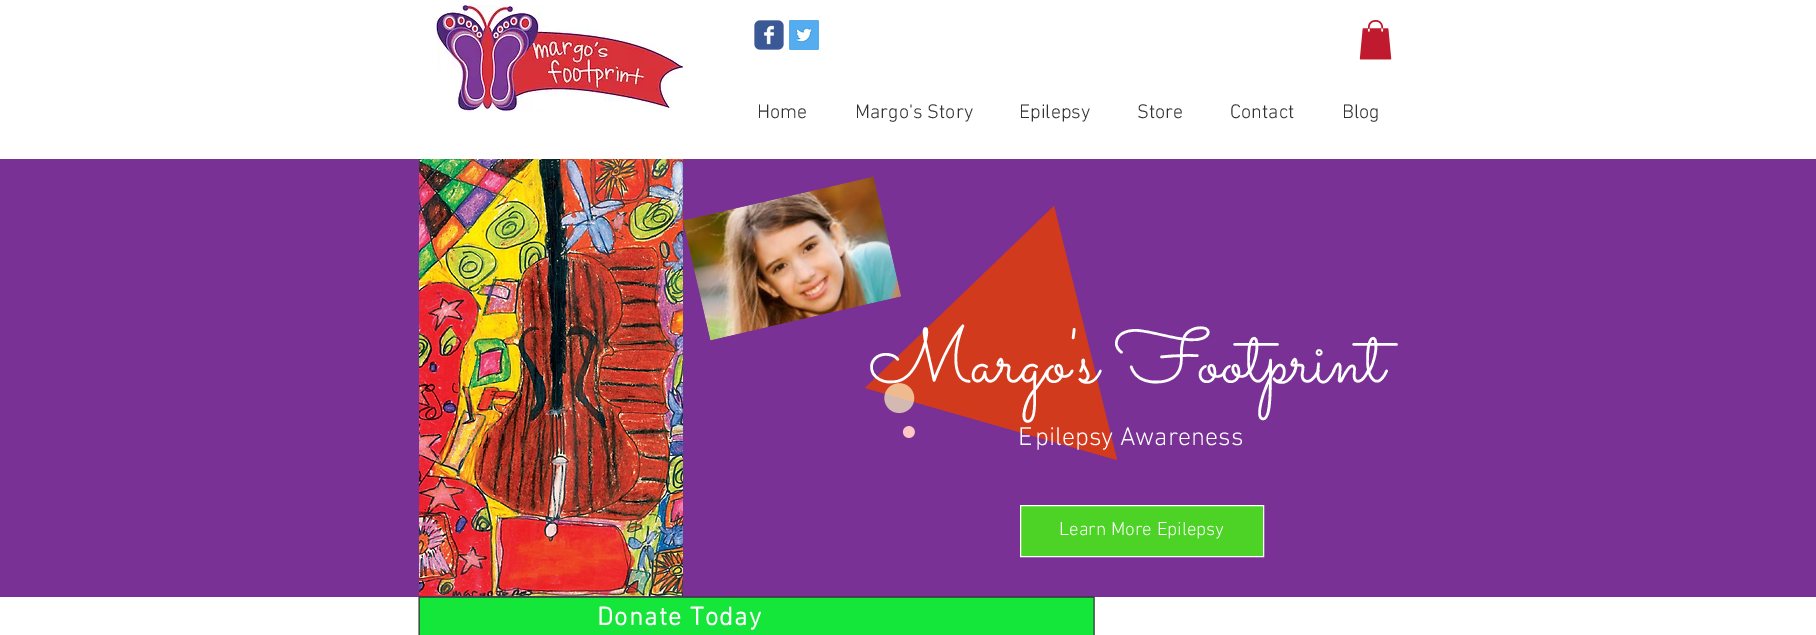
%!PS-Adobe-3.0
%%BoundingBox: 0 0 1816 635
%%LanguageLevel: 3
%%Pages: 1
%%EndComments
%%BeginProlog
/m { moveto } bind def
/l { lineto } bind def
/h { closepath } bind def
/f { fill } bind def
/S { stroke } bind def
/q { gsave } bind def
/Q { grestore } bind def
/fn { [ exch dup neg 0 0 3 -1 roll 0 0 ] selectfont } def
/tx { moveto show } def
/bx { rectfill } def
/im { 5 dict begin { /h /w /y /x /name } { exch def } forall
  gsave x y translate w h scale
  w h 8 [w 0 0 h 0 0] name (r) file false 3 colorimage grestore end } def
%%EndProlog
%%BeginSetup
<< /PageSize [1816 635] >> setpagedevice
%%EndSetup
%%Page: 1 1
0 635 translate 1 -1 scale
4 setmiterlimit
1 setgray
0 0 1816 635 bx
(image0.raw) 436 5 247 106 im
(image1.raw) 754 20 30 30 im
(image2.raw) 789 20 30 30 im
(image3.raw) 1359 20 33 40 im
/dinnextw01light-Light 20 fn
0.192 setgray
(Home) 757 118 tx
(Margo's Story) 855 118 tx
(Epilepsy) 1019 118 tx
(Store) 1137 118 tx
(Contact) 1230 118 tx
(Blog) 1342 118 tx
0.478 0.192 0.584 setrgbcolor
0 159 1816 438 bx
(image4.raw) 419 159 264 437 im
0.824 0.227 0.118 setrgbcolor
1117 460 m 865 388 l 1054 206 l h f
/Sacramento-Regular 77 fn
1 setgray
(Margo's Footprint) 869 382 tx
(image5.raw) 683 176 218 165 im
/dinnextw01light-Light 26 fn
1018 445 m 3 0 (E) ashow
(pilepsy Awareness) 1035 445 tx
(image6.raw) 884 383 31 31 im
(image7.raw) 902 426 13 12 im
0.298 0.827 0.145 setrgbcolor
1020.5 505.5 m 1263.5 505.5 l 1263.5 556.5 l 1020.5 556.5 l h q f Q
1 setgray
S
/dinnextw01light-Light 19 fn
(Learn More Epilepsy) 1059 535 tx
0.082 0.902 0.227 setrgbcolor
419 597 675 38 bx
0.192 setgray
1094 597 m 1094 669 l 419 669 l 419 597 l h S
/dinnextw01light-Bold 26 fn
1 setgray
597 625 m 1.25 0 (Donate Today) ashow
showpage
%%EOF
